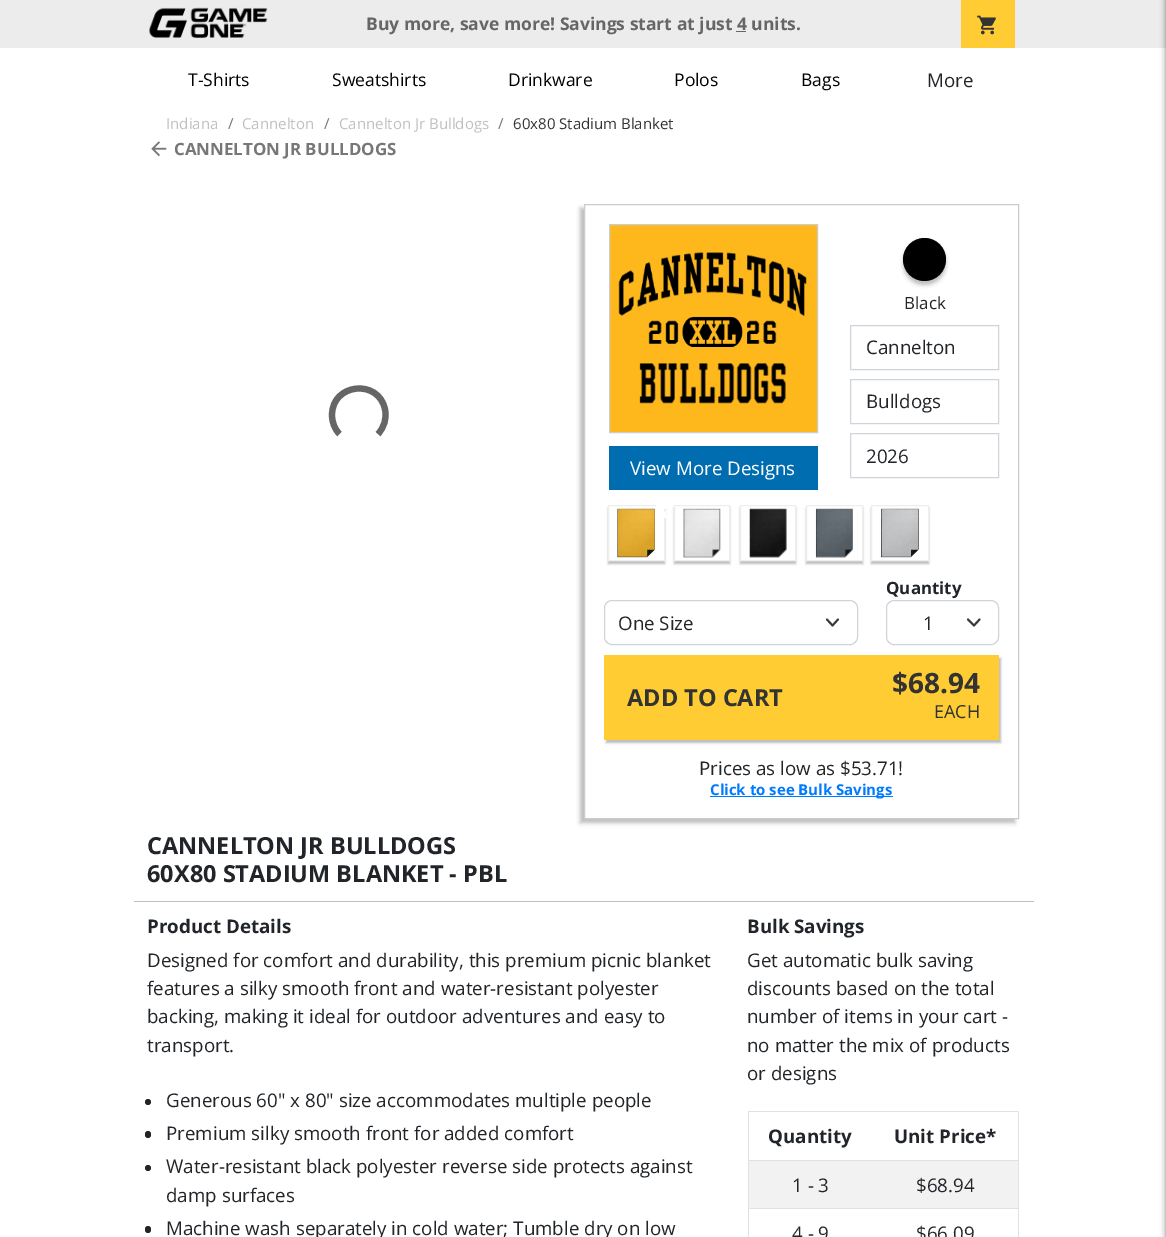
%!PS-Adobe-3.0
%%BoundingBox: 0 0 1166 1237
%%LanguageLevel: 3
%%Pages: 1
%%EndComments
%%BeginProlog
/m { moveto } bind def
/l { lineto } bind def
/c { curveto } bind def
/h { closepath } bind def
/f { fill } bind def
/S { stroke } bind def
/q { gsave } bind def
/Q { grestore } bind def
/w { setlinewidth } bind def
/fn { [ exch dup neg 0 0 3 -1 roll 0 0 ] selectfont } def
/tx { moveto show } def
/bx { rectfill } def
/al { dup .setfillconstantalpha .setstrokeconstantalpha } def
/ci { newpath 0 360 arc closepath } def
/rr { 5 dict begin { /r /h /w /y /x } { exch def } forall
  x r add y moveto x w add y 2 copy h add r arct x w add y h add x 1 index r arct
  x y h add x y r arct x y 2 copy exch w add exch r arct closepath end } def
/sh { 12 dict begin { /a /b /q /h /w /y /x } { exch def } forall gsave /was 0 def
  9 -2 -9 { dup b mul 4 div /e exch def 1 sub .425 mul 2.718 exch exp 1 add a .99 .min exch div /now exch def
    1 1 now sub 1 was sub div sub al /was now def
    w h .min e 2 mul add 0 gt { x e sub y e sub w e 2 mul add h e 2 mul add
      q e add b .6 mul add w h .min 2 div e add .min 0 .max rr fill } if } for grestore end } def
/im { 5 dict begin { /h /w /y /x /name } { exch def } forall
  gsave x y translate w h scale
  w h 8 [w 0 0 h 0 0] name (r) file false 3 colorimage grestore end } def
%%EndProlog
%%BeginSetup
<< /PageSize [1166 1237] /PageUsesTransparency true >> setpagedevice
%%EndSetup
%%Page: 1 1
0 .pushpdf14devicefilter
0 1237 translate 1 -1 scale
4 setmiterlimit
1 setgray
0 0 1166 1237 bx
0.925 setgray
0 0 1166 48 bx
(image0.raw) 149 7 119 31 im
/OpenSans-Bold 17.5 fn
0.4 setgray
(Buy more, save more! Savings start at just 4 units.) 366 30 tx
736 31 10 1 bx
1 0.8 0.2 setrgbcolor
961 0 54 48 bx
(image1.raw) 977 15 19 20 im
/OpenSans-Regular 17.5 fn
0 setgray
(T-Shirts) 188 86 tx
(Sweatshirts) 332 86 tx
(Drinkware) 508 86 tx
(Polos) 674 86 tx
(Bags) 801 86 tx
/OpenSans-Regular 18.75 fn
0.129 0.145 0.161 setrgbcolor
(More) 927 87 tx
0 setgray
1166 0 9 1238 0 3 0.5 sh
/OpenSans-Regular 15 fn
0.753 setgray
(Indiana) 166 129 tx
0.424 0.459 0.49 setrgbcolor
(/) 228 129 tx
0.753 setgray
(Cannelton) 242 129 tx
0.424 0.459 0.49 setrgbcolor
(/) 324 129 tx
0.753 setgray
(Cannelton Jr Bulldogs) 339 129 tx
0.424 0.459 0.49 setrgbcolor
(/) 498 129 tx
0.2 setgray
(60x80 Stadium Blanket) 513 129 tx
(image2.raw) 151 141 16 16 im
/OpenSans-Bold 16.9 fn
0.467 setgray
(CANNELTON JR BULLDOGS) 174 155 tx
0.4 setgray
6.2 w
339.5 434 m 334.5 429 332 422 332 415 c 332 383 379 378.5 385 409.5 c 387 418.5 384 427.5 378 434 c S
q
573 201 m 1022 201 l 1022 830 l 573 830 l h 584 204 m 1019 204 l 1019 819 l 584 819 l h eoclip newpath
0 setgray
580 208 435 615 0 2 0.25 sh
Q
0.8 setgray
1 w
584.5 204.5 434 614 rectstroke
0 setgray
903 241 43 44 21.5 2 0.25 sh
924.5 259.5 21.5 ci f
/OpenSans-Regular 16.9 fn
0.129 0.145 0.161 setrgbcolor
(Black) 904 309 tx
0.808 0.831 0.855 setrgbcolor
850.5 325.5 148 44 rectstroke
/OpenSans-Regular 18.75 fn
0.129 0.145 0.161 setrgbcolor
(Cannelton) 866 354 tx
0.808 0.831 0.855 setrgbcolor
850.5 379.5 148 44 rectstroke
0.129 0.145 0.161 setrgbcolor
(Bulldogs) 866 408 tx
0.808 0.831 0.855 setrgbcolor
850.5 433.5 148 44 rectstroke
0.129 0.145 0.161 setrgbcolor
(2026) 866 463 tx
1 0.722 0.11 setrgbcolor
609.5 224.5 m 817.5 224.5 l 817.5 432.5 l 609.5 432.5 l h q f Q
0.8 setgray
S
(image3.raw) 618 252 189 152 im
0 0.427 0.69 setrgbcolor
609 446 209 44 bx
1 setgray
(View More Designs) 630 475 tx
q
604 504 m 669 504 l 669 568 l 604 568 l h 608 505 m 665 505 l 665 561 l 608 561 l h eoclip newpath
0 setgray
608 508 57 56 0 1 0.25 sh
Q
0.933 setgray
608.5 505.5 56 55 rectstroke
(image4.raw) 617 508 38 50 im
(image5.raw) 656 505 10 13 im
q
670 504 m 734 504 l 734 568 l 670 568 l h 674 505 m 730 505 l 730 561 l 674 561 l h eoclip newpath
0 setgray
674 508 56 56 0 1 0.25 sh
Q
674.5 505.5 55 55 rectstroke
(image6.raw) 683 508 38 50 im
q
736 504 m 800 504 l 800 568 l 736 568 l h 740 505 m 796 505 l 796 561 l 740 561 l h eoclip newpath
0 setgray
740 508 56 56 0 1 0.25 sh
Q
740.5 505.5 55 55 rectstroke
(image7.raw) 749 508 38 50 im
q
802 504 m 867 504 l 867 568 l 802 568 l h 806 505 m 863 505 l 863 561 l 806 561 l h eoclip newpath
0 setgray
806 508 57 56 0 1 0.25 sh
Q
806.5 505.5 56 55 rectstroke
(image8.raw) 815 508 38 50 im
q
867 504 m 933 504 l 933 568 l 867 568 l h 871 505 m 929 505 l 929 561 l 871 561 l h eoclip newpath
0 setgray
871 508 58 56 0 1 0.25 sh
Q
871.5 505.5 57 55 rectstroke
(image9.raw) 881 508 38 50 im
0.204 0.227 0.251 setrgbcolor
1.9 w
1 setlinecap
1 setlinejoin
827 619.5 m 832.5 625.5 l 838 619.5 l S
0.808 0.831 0.855 setrgbcolor
1 w
0 setlinecap
0 setlinejoin
604.5 600.5 253 44 7.5 rr S
0.129 0.145 0.161 setrgbcolor
(One Size) 618 630 tx
/OpenSans-Bold 16.9 fn
(Quantity) 886 594 tx
0.204 0.227 0.251 setrgbcolor
1.9 w
1 setlinecap
1 setlinejoin
968 619.5 m 974 625.5 l 979.5 619.5 l S
0.808 0.831 0.855 setrgbcolor
1 w
0 setlinecap
0 setlinejoin
886.5 600.5 112 44 7.5 rr S
/OpenSans-Regular 18.75 fn
0.129 0.145 0.161 setrgbcolor
(1) 923 630 tx
0 setgray
606 658 395 85 0 1 0.25 sh
1 0.8 0.2 setrgbcolor
604 655 395 85 bx
/OpenSans-Bold 23.5 fn
0.2 setgray
(ADD TO CART) 627 706 tx
/OpenSans-Bold 28 fn
($68.94) 892 693 tx
/OpenSans-Regular 18 fn
(EACH) 934 718 tx
/OpenSans-Regular 18.75 fn
0.129 0.145 0.161 setrgbcolor
(Prices as low as $53.71!) 699 775 tx
0 0.482 1 setrgbcolor
710 796 183 1 bx
/OpenSans-Bold 15 fn
(Click to see Bulk Savings) 710 795 tx
0.753 setgray
134 901 900 1 bx
/OpenSans-Bold 23.5 fn
0.129 0.145 0.161 setrgbcolor
(CANNELTON JR BULLDOGS) 147 854 tx
(60X80 STADIUM BLANKET - PBL) 147 882 tx
/OpenSans-Bold 18.75 fn
(Product Details) 147 933 tx
/OpenSans-Regular 18.75 fn
(Designed for comfort and durability, this premium picnic blanket) 147 967 tx
(features a silky smooth front and water-resistant polyester) 147 995 tx
(backing, making it ideal for outdoor adventures and easy to) 147 1023 tx
(transport.) 147 1052 tx
148 1102 3 ci f
(Generous 60" x 80" size accommodates multiple people) 166 1107 tx
145 1131 6 7 3 rr f
(Premium silky smooth front for added comfort) 166 1140 tx
148 1168 3 ci f
(Water-resistant black polyester reverse side protects against) 166 1173 tx
(damp surfaces) 166 1202 tx
145 1226 6 7 3 rr f
(Machine wash separately in cold water; Tumble dry on low) 166 1235 tx
/OpenSans-Bold 18.75 fn
(Bulk Savings) 747 933 tx
/OpenSans-Regular 18.75 fn
(Get automatic bulk saving) 747 967 tx
(discounts based on the total) 747 995 tx
(number of items in your cart -) 747 1023 tx
(no matter the mix of products) 747 1052 tx
(or designs) 747 1080 tx
0.871 0.886 0.902 setrgbcolor
748 1111 271 1 bx
1018 1111 1 126 bx
748 1111 1 126 bx
/OpenSans-Bold 18.75 fn
0.129 0.145 0.161 setrgbcolor
(Quantity) 768 1143 tx
0.871 0.886 0.902 setrgbcolor
748 1160 271 1 bx
0.129 0.145 0.161 setrgbcolor
(Unit Price*) 894 1143 tx
0.949 setgray
749 1161 269 47 bx
/OpenSans-Regular 18.75 fn
0.129 0.145 0.161 setrgbcolor
(1 - 3) 792 1192 tx
0.871 0.886 0.902 setrgbcolor
748 1208 271 1 bx
0.129 0.145 0.161 setrgbcolor
($68.94) 916 1192 tx
(4 - 9) 792 1240 tx
($66.09) 916 1240 tx
.poppdf14devicefilter showpage
%%EOF
